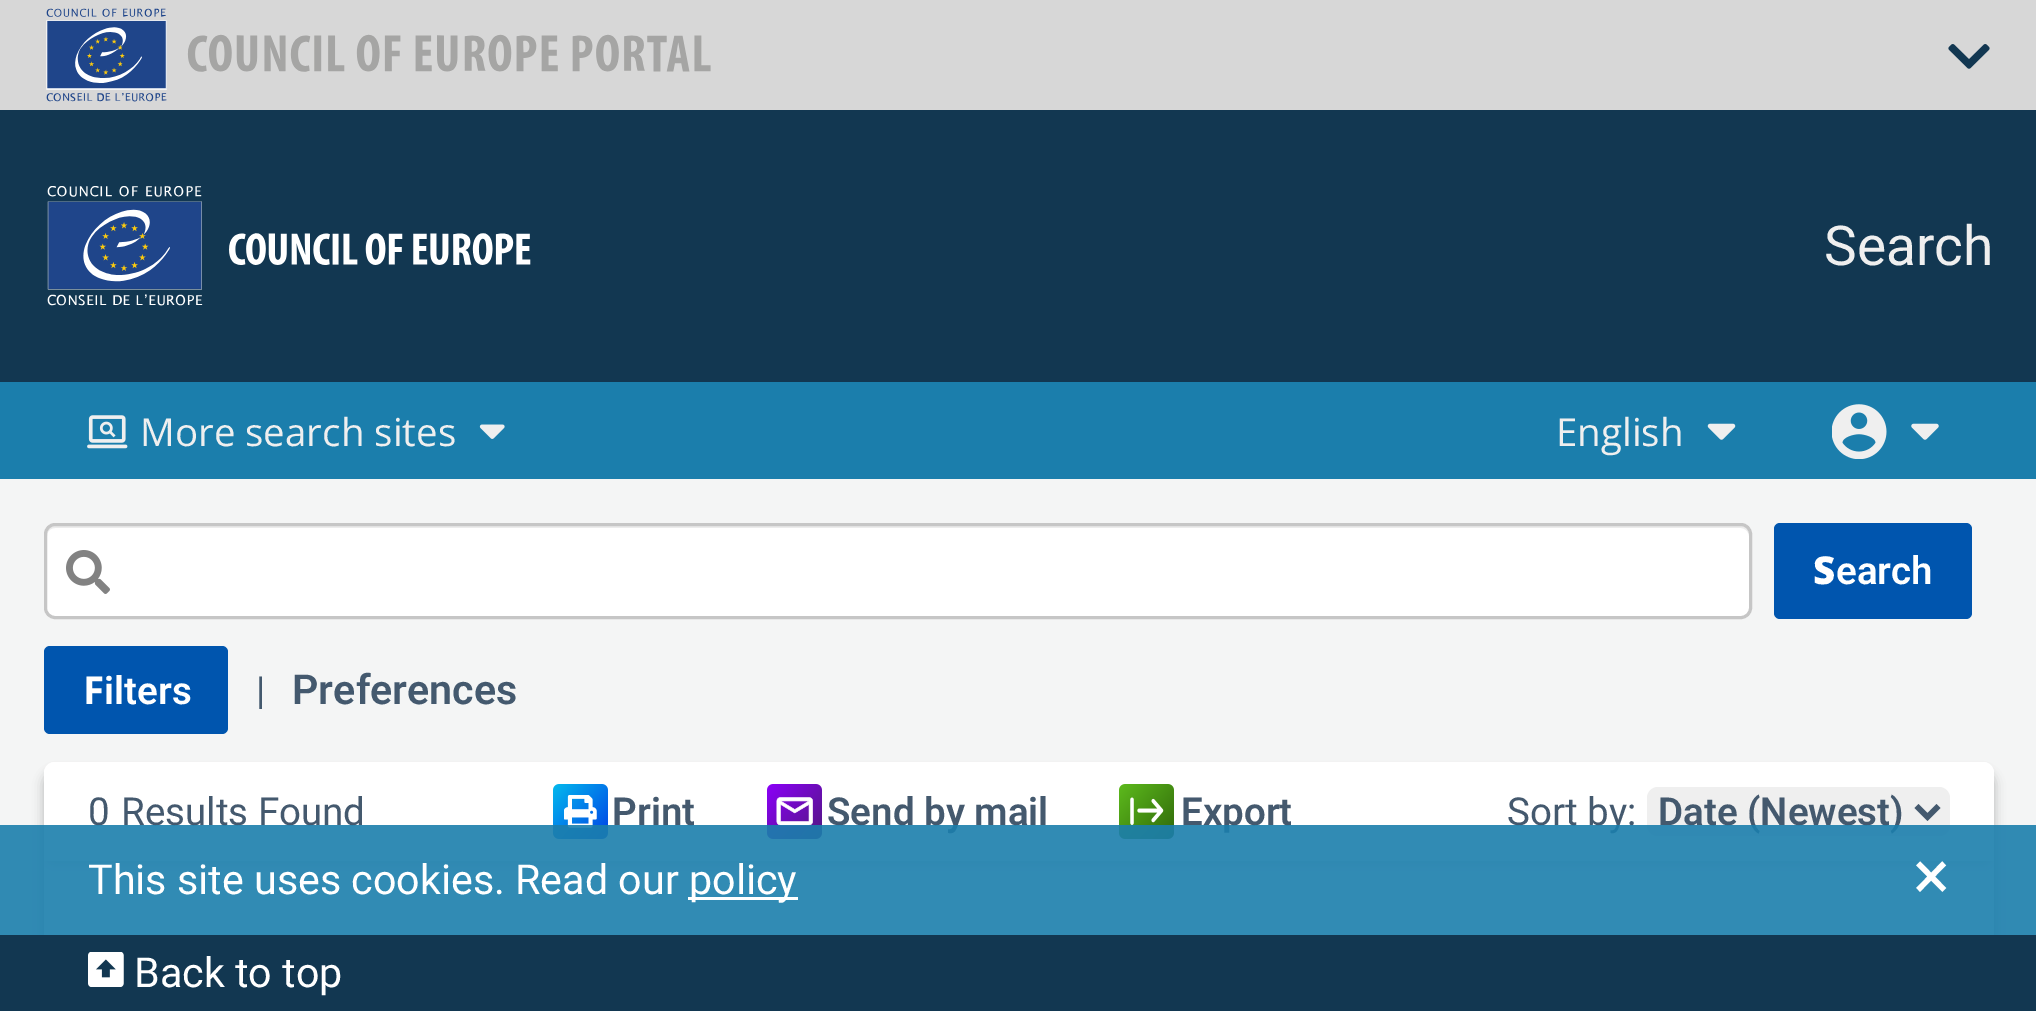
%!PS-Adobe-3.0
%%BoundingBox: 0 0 2036 1011
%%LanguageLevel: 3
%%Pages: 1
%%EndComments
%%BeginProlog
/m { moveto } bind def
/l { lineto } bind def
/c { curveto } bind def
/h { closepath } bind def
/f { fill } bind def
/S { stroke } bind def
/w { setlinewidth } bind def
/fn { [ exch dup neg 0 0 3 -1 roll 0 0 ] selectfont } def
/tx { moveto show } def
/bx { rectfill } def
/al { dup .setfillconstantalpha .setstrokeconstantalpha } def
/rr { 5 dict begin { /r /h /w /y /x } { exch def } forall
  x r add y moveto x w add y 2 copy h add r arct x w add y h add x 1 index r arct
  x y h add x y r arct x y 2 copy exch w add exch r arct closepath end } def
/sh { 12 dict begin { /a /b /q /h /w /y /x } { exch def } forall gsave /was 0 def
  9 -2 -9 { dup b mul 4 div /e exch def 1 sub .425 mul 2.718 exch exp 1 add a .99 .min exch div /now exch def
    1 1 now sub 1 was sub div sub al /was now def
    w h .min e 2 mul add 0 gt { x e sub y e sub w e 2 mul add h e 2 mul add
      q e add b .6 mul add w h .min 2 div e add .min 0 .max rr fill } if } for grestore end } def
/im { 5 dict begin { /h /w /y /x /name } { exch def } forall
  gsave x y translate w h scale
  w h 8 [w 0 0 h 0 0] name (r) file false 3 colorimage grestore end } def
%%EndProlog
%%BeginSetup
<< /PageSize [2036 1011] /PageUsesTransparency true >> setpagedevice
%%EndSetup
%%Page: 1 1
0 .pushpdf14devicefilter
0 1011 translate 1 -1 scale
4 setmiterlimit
0.957 0.961 0.961 setrgbcolor
0 0 2036 1011 bx
0.843 setgray
0 0 2036 110 bx
(image0.raw) 46 8 665 94 im
(image1.raw) 1948 44 42 25 im
0.071 0.216 0.318 setrgbcolor
0 110 2036 272 bx
(image2.raw) 47 186 484 120 im
/Roboto-Regular 55 fn
0.937 setgray
(Search) 1824 265 tx
0.106 0.494 0.675 setrgbcolor
0 382 2036 97 bx
(image3.raw) 87 415 41 34 im
/OpenSans-Regular 38.5 fn
0.937 setgray
(More search sites) 140 446 tx
(image4.raw) 479 424 26 15 im
(English) 1556 446 tx
(image5.raw) 1707 423 29 17 im
(image6.raw) 1832 404 55 55 im
(image7.raw) 1911 423 28 17 im
1 setgray
44 523 1708 96 11 rr f
0.925 setgray
55 528 m 1741 528 l 1745 528 1749 532 1749 536 c 1749 533 l 1749 529 1745 525 1741 525 c 55 525 l 51 525 47 529 47 533 c 47 536 l 47 532 50 528 55 528 c h f
0.776 setgray
3 w
45.5 524.5 1705 93 9.5 rr S
(image8.raw) 66 550 44 44 im
0 0.333 0.682 setrgbcolor
1774 523 198 96 6 rr f
/NotoSans-Black 38.5 fn
1 setgray
(S) 1813 584 tx
/Roboto-SemiBold 38.5 fn
(earch) 1836 584 tx
0 0.333 0.682 setrgbcolor
44 646 184 88 6 rr f
/NotoSans-Bold 38.5 fn
1 setgray
(F) 83 704 tx
/Roboto-SemiBold 38.5 fn
(ilters) 104 704 tx
/Roboto-Regular 38.5 fn
0.267 0.349 0.431 setrgbcolor
(|) 256 704 tx
/Roboto-SemiBold 41.25 fn
(Preferences) 292 704 tx
0 setgray
44 773 1950 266 11 5.5 0.25 sh
1 setgray
44 762 1950 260 11 rr f
0.827 setgray
44 767 1950 99 11 3 0.5 sh
1 setgray
55 762 m 1983 762 l 1989 762 1994 767 1994 773 c 1994 861 l 44 861 l 44 773 l 44 767 49 762 55 762 c h f
/Roboto-Regular 38.5 fn
0.267 0.349 0.431 setrgbcolor
(0) 88 825 tx
(Results Found) 121 825 tx
(image9.raw) 553 784 55 55 im
/Roboto-SemiBold 38.5 fn
(Print) 612 825 tx
(image10.raw) 767 784 55 55 im
(Send by mail) 827 825 tx
(image11.raw) 1119 784 55 55 im
(Export) 1181 825 tx
/Roboto-Regular 38.5 fn
(Sort by:) 1507 825 tx
0.937 setgray
1647 787 303 49 11 rr f
0.267 0.349 0.431 setrgbcolor
5.5 w
1916.5 806 m 1927.5 817 l 1938.5 806 l S
/Roboto-SemiBold 38.5 fn
(Date \(Newest\)) 1658 825 tx
0.9 al
0.106 0.494 0.675 setrgbcolor
0 825 2036 110 bx
/Roboto-Regular 41.25 fn
1 al
1 setgray
(This site uses cookies. Read our) 88 894 tx
688 897 110 3 bx
(policy) 689 894 tx
/Roboto-Regular 69 fn
(×) 1913 899 tx
0.071 0.216 0.318 setrgbcolor
0 935 2036 76 bx
(image12.raw) 88 952 36 35 im
/Roboto-Regular 41.25 fn
1 setgray
(Back to top) 134 987 tx
.poppdf14devicefilter showpage
%%EOF
